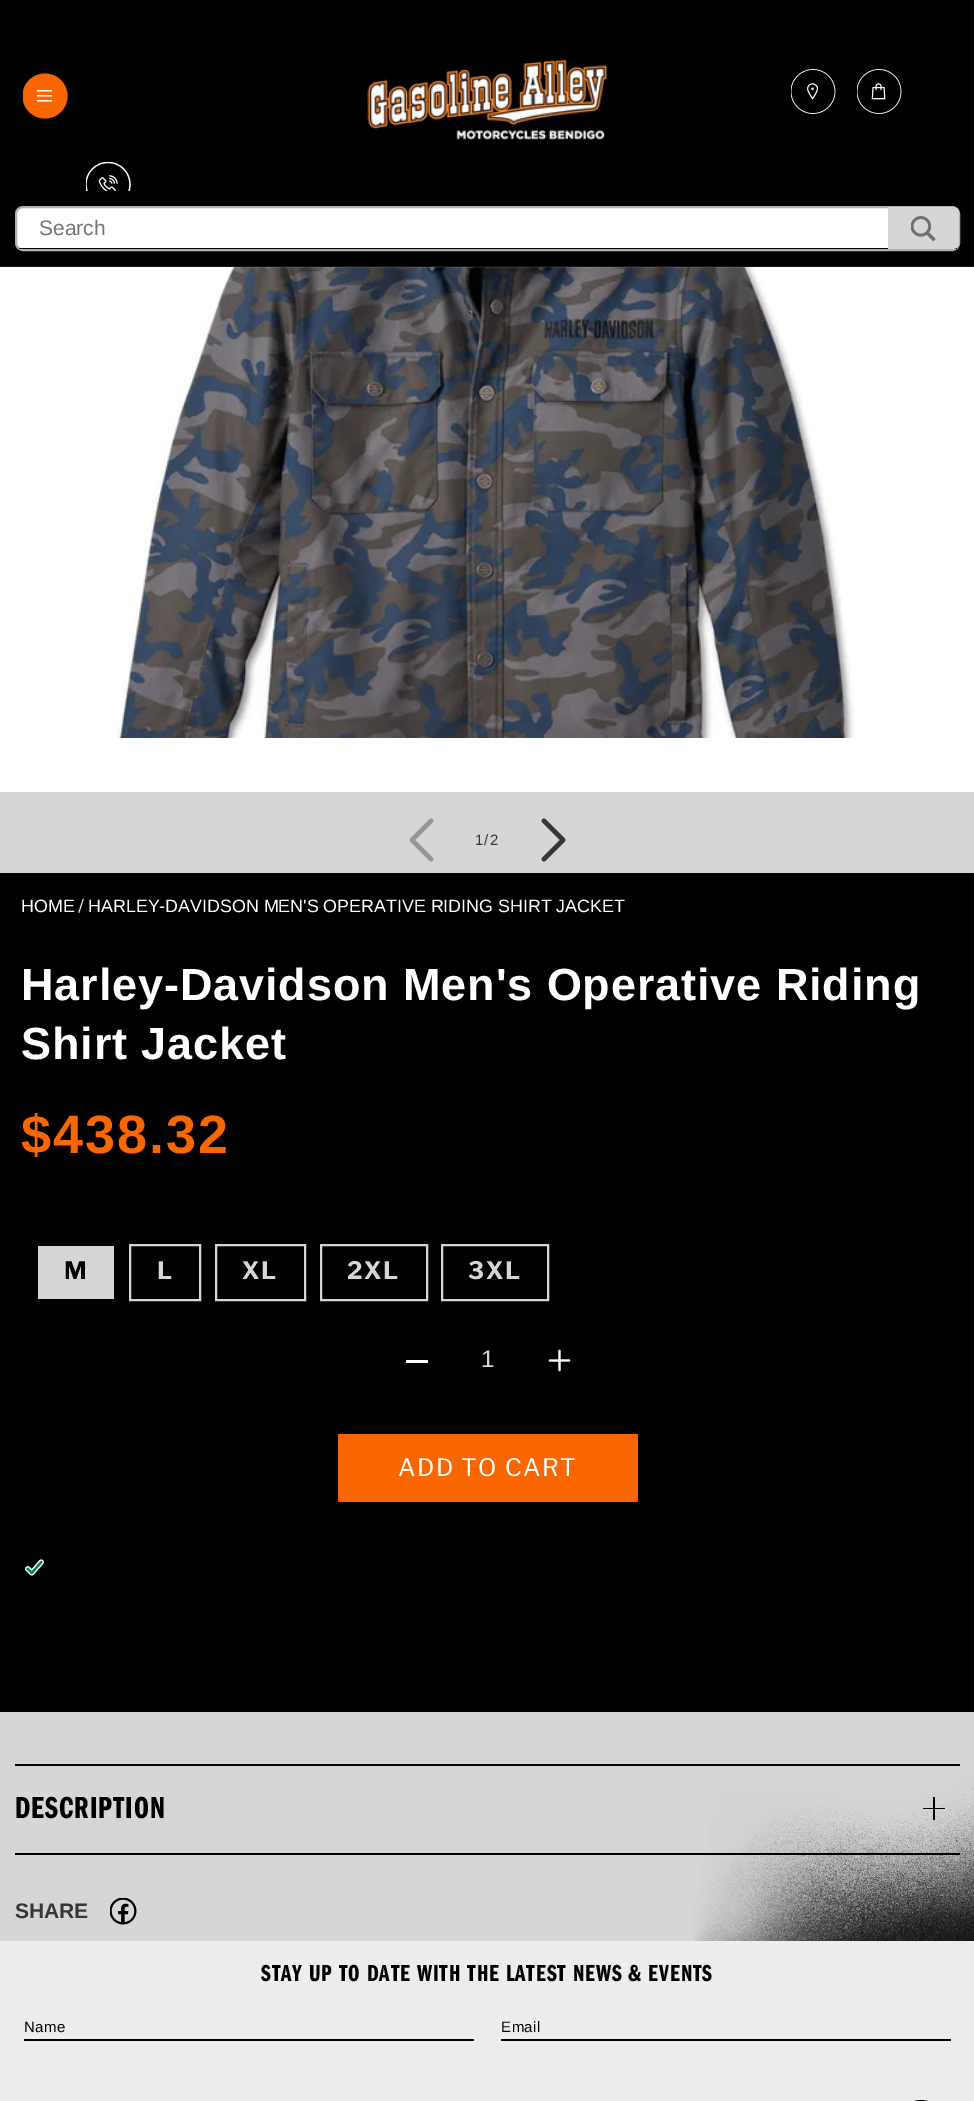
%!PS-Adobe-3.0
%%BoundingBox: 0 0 974 2101
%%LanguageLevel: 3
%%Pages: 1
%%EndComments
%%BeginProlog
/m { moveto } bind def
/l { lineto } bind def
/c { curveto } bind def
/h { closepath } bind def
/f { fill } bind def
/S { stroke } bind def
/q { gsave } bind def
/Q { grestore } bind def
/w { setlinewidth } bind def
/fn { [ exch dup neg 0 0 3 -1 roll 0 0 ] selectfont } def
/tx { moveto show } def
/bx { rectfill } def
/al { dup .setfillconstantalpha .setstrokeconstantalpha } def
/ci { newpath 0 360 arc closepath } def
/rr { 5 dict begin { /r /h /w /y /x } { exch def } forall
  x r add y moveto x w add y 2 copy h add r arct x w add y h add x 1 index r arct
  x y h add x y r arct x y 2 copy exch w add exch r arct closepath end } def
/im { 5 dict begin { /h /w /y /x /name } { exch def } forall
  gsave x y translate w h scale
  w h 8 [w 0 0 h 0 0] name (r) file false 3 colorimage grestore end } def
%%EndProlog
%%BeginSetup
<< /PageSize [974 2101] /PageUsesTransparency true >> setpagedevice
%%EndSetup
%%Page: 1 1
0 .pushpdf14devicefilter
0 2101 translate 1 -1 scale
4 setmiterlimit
0.839 setgray
0 0 974 2101 bx
0 setgray
0 0 974 267 bx
(image5.raw) 0 267 974 471 im
0.08 al
1 setgray
0 266 974 2 bx
q
23 66 45 60 rectclip
1 al
0.98 0.4 0 setrgbcolor
45 96 22.5 ci f
Q
1 al
37 90 m 37 91.5 l 52 91.5 l 52 90 l h 37 95 m 37 96.5 l 52 96.5 l 52 95 l h 37 100 m 37 101.5 l 52 101.5 l 52 100 l h f
(image0.raw) 86 162 45 29 im
(image1.raw) 367 59 241 81 im
(image2.raw) 791 69 45 45 im
(image3.raw) 857 69 45 45 im
16 207 943 43 7 rr q f Q
0.69 setgray
2 w
S
q
17 207 942 42 6 rr clip newpath
0 setgray
17 248 942 1 bx
Q
/LiberationSans-Regular 21 fn
0.459 setgray
(Search) 39 235 tx
0.839 setgray
888 207 m 953 207 l 956.5 207 959 209.5 959 213 c 959 243 l 959 246.5 956.5 249 953 249 c 888 249 l h f
(image4.raw) 911 216 25 26 im
1 setgray
0 738 974 54 bx
(image6.raw) 409 818 25 44 im
/LiberationSans-Regular 15 fn
0.212 setgray
475 845 m 1 0 (1/2) ashow
(image7.raw) 541 818 25 44 im
0 setgray
0 873 974 839 bx
/LiberationSans-Regular 17.85 fn
1 setgray
(HOME) 21 912 tx
/LibreFranklin-Regular 17.85 fn
(/) 78 912 tx
/LiberationSans-Regular 17.85 fn
(HARLEY-DAVIDSON MEN'S OPERATIVE RIDING SHIRT JACKET) 88 912 tx
/LiberationSans-Bold 45 fn
21 1000 m 0.9 0 (Harley-Davidson Men's Operative Riding) ashow
21 1059 m 0.9 0 (Shirt Jacket) ashow
/LiberationSans-Bold 54 fn
0.98 0.4 0 setrgbcolor
21 1153 m 2 0 ($438.32) ashow
0.839 setgray
38 1246 76 53 bx
/LibreFranklin-Bold 24 fn
0 setgray
64 1279 m 1.5 0 (M) ashow
0.839 setgray
130 1245 70 55 rectstroke
157 1279 m 1.5 0 (L) ashow
216 1245 89 55 rectstroke
242 1279 m 1.5 0 (XL) ashow
321 1245 106 55 rectstroke
347 1279 m 1.5 0 (2XL) ashow
442 1245 106 55 rectstroke
468 1279 m 1.5 0 (3XL) ashow
1 setgray
406 1360 22 3 bx
/LiberationSans-Regular 24 fn
0.839 setgray
(1) 481 1367 tx
(image8.raw) 548 1349 23 23 im
0.98 0.4 0 setrgbcolor
338 1434 300 68 bx
/LibreFranklin-Regular 24 fn
1 setgray
398 1476 m 1.5 0 (ADD TO CART) ashow
(image9.raw) 25 1559 19 17 im
(image10.raw) 693 1775 281 166 im
0 setgray
15 1764 945 2 bx
15 1853 945 2 bx
/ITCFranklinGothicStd-SemiBold 31.5 fn
15 1818 m 0.9 0 (DESCRIPTION) ashow
0.008 setgray
933 1797 2 23 bx
923 1808 22 1 bx
/LiberationSans-Bold 21 fn
0.212 setgray
(SHARE) 15 1918 tx
(image11.raw) 110 1898 27 27 im
0.937 0.929 0.925 setrgbcolor
0 1941 974 160 bx
/ITCFranklinGothicStd-SemiBold 24 fn
0 setgray
261 1981 m 0.9 0 (STAY UP TO DATE WITH THE LATEST NEWS & EVENTS) ashow
24 2039 450 2 bx
/LiberationSans-Regular 15 fn
24 2032 m 0.5 0 (Name) ashow
501 2039 450 2 bx
501 2032 m 0.5 0 (Email) ashow
921 2122.5 22.5 ci f
.poppdf14devicefilter showpage
%%EOF
